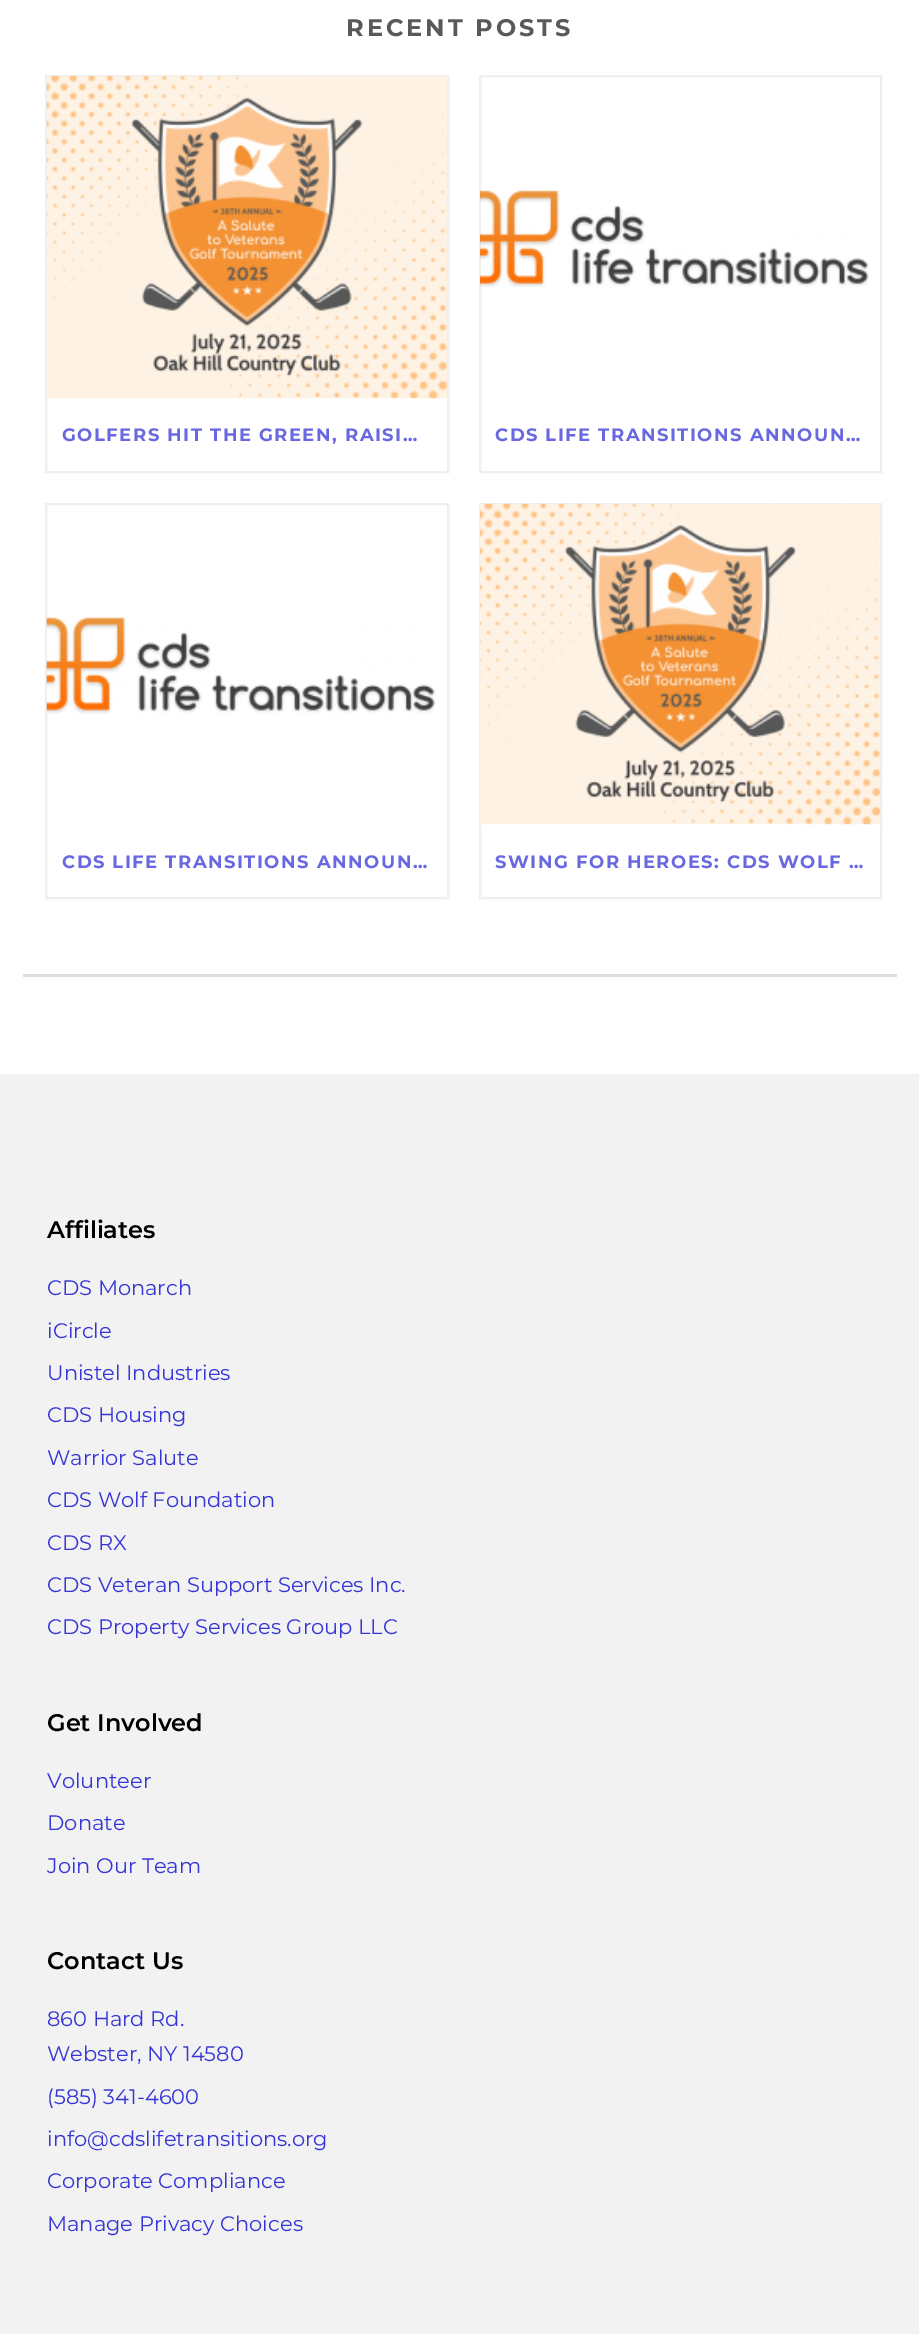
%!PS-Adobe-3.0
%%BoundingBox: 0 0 919 2334
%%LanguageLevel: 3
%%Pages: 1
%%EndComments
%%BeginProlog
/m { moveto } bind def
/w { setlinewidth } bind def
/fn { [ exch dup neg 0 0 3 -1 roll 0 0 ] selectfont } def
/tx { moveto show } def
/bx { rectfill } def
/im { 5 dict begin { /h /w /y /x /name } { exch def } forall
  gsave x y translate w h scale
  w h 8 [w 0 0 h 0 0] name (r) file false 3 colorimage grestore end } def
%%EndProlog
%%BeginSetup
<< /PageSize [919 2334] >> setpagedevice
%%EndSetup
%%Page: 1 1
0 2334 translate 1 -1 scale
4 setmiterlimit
1 setgray
0 0 919 2334 bx
0.867 setgray
23 974 874 3 bx
/Montserrat-Bold 24 fn
0.349 setgray
346 36 m 3 0 (RECENT POSTS) ashow
0.937 setgray
2 w
46 76 402 396 rectstroke
(image0.raw) 46 76 401 323 im
/Montserrat-Bold 18 fn
0.408 0.408 0.882 setrgbcolor
62 441 m 1.5 0 (GOLFERS HIT THE GREEN, RAISI…) ashow
0.937 setgray
480 76 401 396 rectstroke
(image1.raw) 480 190 389 97 im
0.408 0.408 0.882 setrgbcolor
495 441 m 1.5 0 (CDS LIFE TRANSITIONS ANNOUN…) ashow
0.937 setgray
46 504 402 394 rectstroke
(image2.raw) 46 617 390 97 im
0.408 0.408 0.882 setrgbcolor
62 868 m 1.5 0 (CDS LIFE TRANSITIONS ANNOUN…) ashow
0.937 setgray
480 504 401 394 rectstroke
(image3.raw) 480 503 401 322 im
0.408 0.408 0.882 setrgbcolor
495 868 m 1.5 0 (SWING FOR HEROES: CDS WOLF …) ashow
0.949 setgray
0 1074 919 1260 bx
/Montserrat-SemiBold 24 fn
0 setgray
(Affiliates) 47 1238 tx
/Montserrat-Regular 21 fn
0.212 0.212 0.843 setrgbcolor
(CDS Monarch) 47 1295 tx
(iCircle) 47 1338 tx
(Unistel Industries) 47 1380 tx
(CDS Housing) 47 1422 tx
(Warrior Salute) 47 1465 tx
(CDS Wolf Foundation) 47 1507 tx
(CDS RX) 47 1550 tx
(CDS Veteran Support Services Inc.) 47 1592 tx
(CDS Property Services Group LLC) 47 1634 tx
/Montserrat-SemiBold 24 fn
0 setgray
(Get Involved) 47 1731 tx
/Montserrat-Regular 21 fn
0.212 0.212 0.843 setrgbcolor
(Volunteer) 47 1788 tx
(Donate) 47 1830 tx
(Join Our Team) 47 1873 tx
/Montserrat-SemiBold 24 fn
0 setgray
(Contact Us) 47 1969 tx
/Montserrat-Regular 21 fn
0.212 0.212 0.843 setrgbcolor
(860 Hard Rd.) 47 2026 tx
(Webster, NY 14580) 47 2061 tx
(\(585\) 341-4600) 47 2104 tx
(info@cdslifetransitions.org) 47 2146 tx
(Corporate Compliance) 47 2188 tx
(Manage Privacy Choices) 47 2231 tx
showpage
%%EOF
